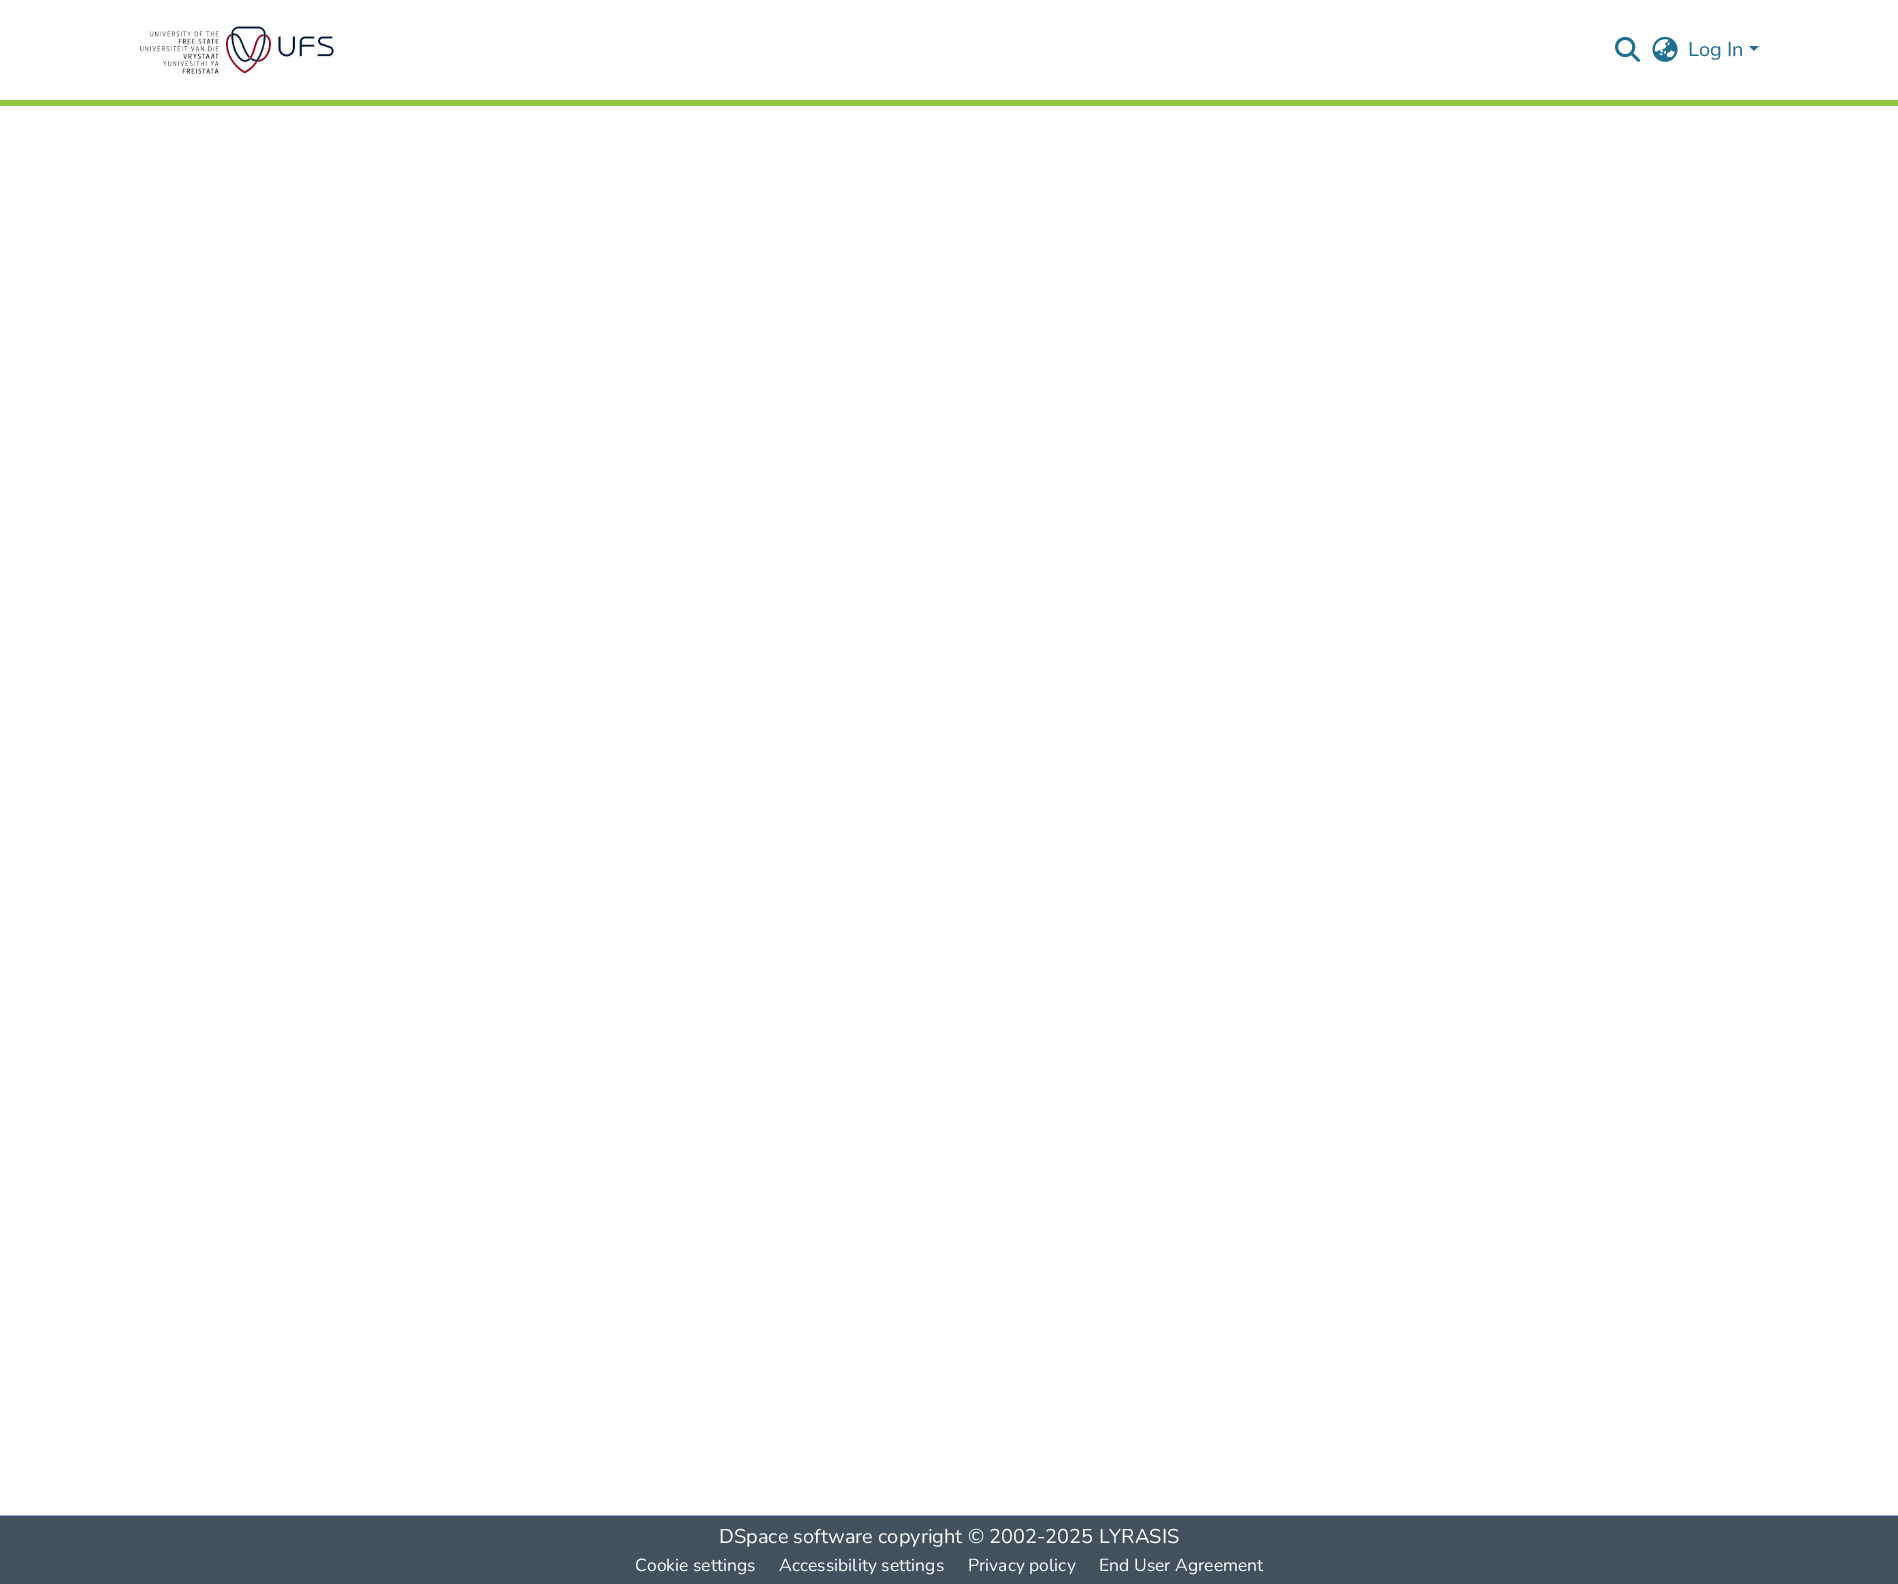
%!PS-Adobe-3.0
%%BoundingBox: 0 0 1898 1584
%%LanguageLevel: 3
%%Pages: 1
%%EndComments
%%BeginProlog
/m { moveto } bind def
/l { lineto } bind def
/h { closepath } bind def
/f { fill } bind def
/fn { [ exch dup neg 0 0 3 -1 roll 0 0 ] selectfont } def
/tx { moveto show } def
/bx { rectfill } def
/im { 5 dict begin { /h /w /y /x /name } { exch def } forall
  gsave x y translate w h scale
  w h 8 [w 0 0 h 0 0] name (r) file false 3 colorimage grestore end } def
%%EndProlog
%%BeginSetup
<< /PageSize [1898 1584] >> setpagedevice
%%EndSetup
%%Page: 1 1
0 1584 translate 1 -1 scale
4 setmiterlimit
1 setgray
0 0 1898 1584 bx
0.573 0.776 0.259 setrgbcolor
0 100 1898 6 bx
(image0.raw) 140 25 194 49 im
(image1.raw) 1615 36 25 26 im
(image2.raw) 1652 36 26 26 im
/Nunito-Regular 20 fn
0.118 0.435 0.565 setrgbcolor
(Log In) 1688 56 tx
1749 46 m 1759 46 l 1754 51 l h f
0.263 0.318 0.373 setrgbcolor
0 1516 1898 68 bx
0.584 0.678 0.918 setrgbcolor
0 1515 1898 1 bx
1 setgray
(DSpace software copyright © 2002-2025 LYRASIS) 719 1543 tx
/Nunito-Regular 17.5 fn
(Cookie settings) 635 1571 tx
0.286 0.314 0.341 setrgbcolor
766 1551 1 29 bx
1 setgray
(Accessibility settings) 779 1571 tx
0.286 0.314 0.341 setrgbcolor
955 1551 1 29 bx
1 setgray
(Privacy policy) 968 1571 tx
0.286 0.314 0.341 setrgbcolor
1086 1551 1 29 bx
1 setgray
(End User Agreement) 1099 1571 tx
showpage
%%EOF
